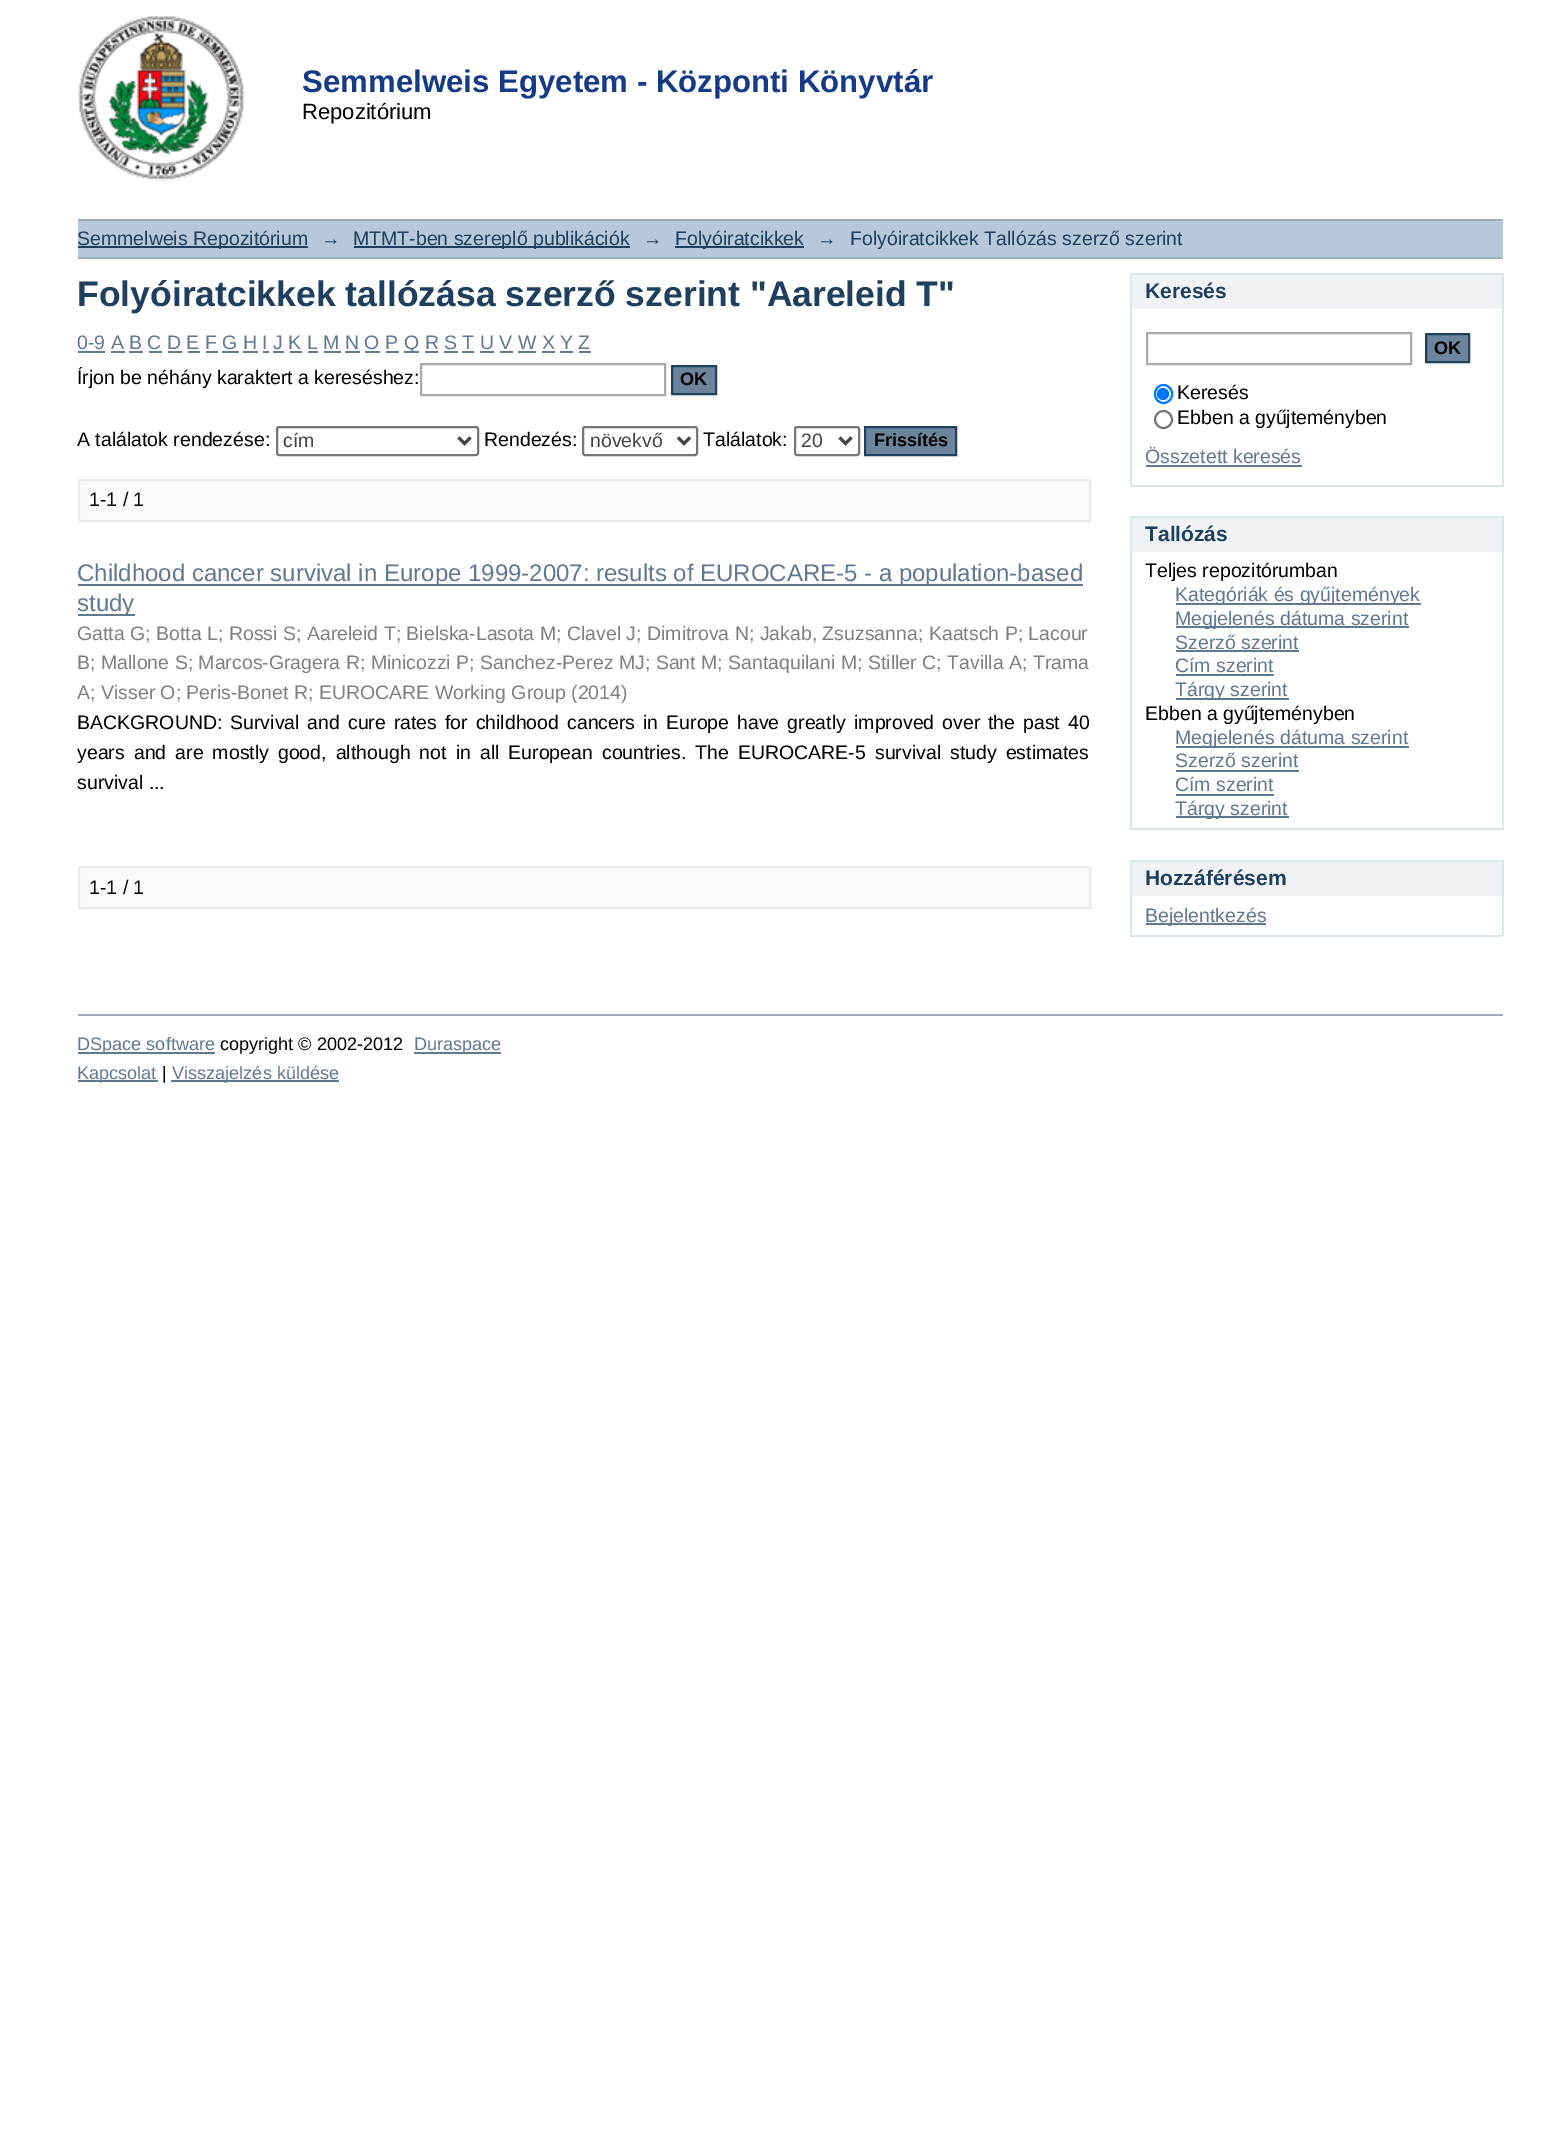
%!PS-Adobe-3.0
%%BoundingBox: 0 0 1549 2137
%%LanguageLevel: 3
%%Pages: 1
%%EndComments
%%BeginProlog
/m { moveto } bind def
/l { lineto } bind def
/h { closepath } bind def
/f { fill } bind def
/S { stroke } bind def
/q { gsave } bind def
/Q { grestore } bind def
/w { setlinewidth } bind def
/fn { [ exch dup neg 0 0 3 -1 roll 0 0 ] selectfont } def
/tx { moveto show } def
/bx { rectfill } def
/ci { newpath 0 360 arc closepath } def
/rr { 5 dict begin { /r /h /w /y /x } { exch def } forall
  x r add y moveto x w add y 2 copy h add r arct x w add y h add x 1 index r arct
  x y h add x y r arct x y 2 copy exch w add exch r arct closepath end } def
/im { 5 dict begin { /h /w /y /x /name } { exch def } forall
  gsave x y translate w h scale
  w h 8 [w 0 0 h 0 0] name (r) file false 3 colorimage grestore end } def
%%EndProlog
%%BeginSetup
<< /PageSize [1549 2137] >> setpagedevice
%%EndSetup
%%Page: 1 1
0 2137 translate 1 -1 scale
4 setmiterlimit
1 setgray
0 0 1549 2137 bx
(image0.raw) 78 16 167 166 im
/LiberationSans-Bold 31.2 fn
0.082 0.227 0.525 setrgbcolor
(Semmelweis Egyetem - Központi Könyvtár) 302 92 tx
/LiberationSans-Regular 22 fn
0 setgray
(Repozitórium) 302 119 tx
0.714 0.784 0.851 setrgbcolor
78 221 1425 36 bx
0.612 0.675 0.729 setrgbcolor
78 219 1425 2 bx
78 257 1425 2 bx
0.122 0.247 0.369 setrgbcolor
78 246 230 2 bx
/LiberationSans-Regular 19.5 fn
(Semmelweis Repozitórium) 77 245 tx
(→) 321 245 tx
354 246 276 2 bx
(MTMT-ben szereplő publikációk) 353 245 tx
(→) 643 245 tx
675 246 129 2 bx
(Folyóiratcikkek) 675 245 tx
(→) 817 245 tx
(Folyóiratcikkek Tallózás szerző szerint) 850 245 tx
/LiberationSans-Bold 35.5 fn
(Folyóiratcikkek tallózása szerző szerint "Aareleid T") 77 306 tx
/LiberationSans-Regular 19.5 fn
0.376 0.471 0.565 setrgbcolor
(0-9 A B C D E F G H I J K L M N O P) 77 349 tx
78 351 27 2 bx
404 351 15 2 bx
(Q R S T U V W X Y Z) 404 349 tx
111 351 14 2 bx
129 351 14 2 bx
149 351 13 2 bx
168 351 14 2 bx
188 351 12 2 bx
206 351 12 2 bx
222 351 17 2 bx
243 351 15 2 bx
263 351 6 2 bx
273 351 11 2 bx
290 351 12 2 bx
308 351 10 2 bx
324 351 17 2 bx
345 351 15 2 bx
365 351 15 2 bx
386 351 13 2 bx
425 351 13 2 bx
444 351 14 2 bx
462 351 12 2 bx
480 351 14 2 bx
500 351 13 2 bx
518 351 18 2 bx
542 351 13 2 bx
560 351 13 2 bx
579 351 12 2 bx
0 setgray
(Írjon be néhány karaktert a kereséshez:) 77 384 tx
0.667 setgray
2 w
421 364 244 31 rectstroke
0.427 0.522 0.612 setrgbcolor
672 366 m 716 366 l 716 394 l 672 394 l h q f Q
0.122 0.247 0.369 setrgbcolor
S
/LiberationSans-Bold 18.1 fn
0 setgray
(OK) 680 385 tx
/LiberationSans-Regular 19.5 fn
(A találatok rendezése:) 77 446 tx
0.463 setgray
277 427 201 28 2 rr S
0.267 setgray
3 w
458.5 437.5 m 464.5 443.5 l 470.5 437.5 l S
(cím) 283 447 tx
0 setgray
(Rendezés:) 484 446 tx
0.463 setgray
2 w
583 427 114 28 2 rr S
0.267 setgray
3 w
678 437.5 m 684 443.5 l 690 437.5 l S
(növekvő) 590 447 tx
0 setgray
(Találatok:) 703 446 tx
0.463 setgray
2 w
795 427 64 28 2 rr S
0.267 setgray
3 w
839.5 437.5 m 845.5 443.5 l 851.5 437.5 l S
(20) 801 447 tx
0.427 0.522 0.612 setrgbcolor
865 427 m 956 427 l 956 455 l 865 455 l h q f Q
0.122 0.247 0.369 setrgbcolor
2 w
S
/LiberationSans-Bold 18.1 fn
0 setgray
(Frissítés) 874 446 tx
0.98 setgray
79 480 m 1090 480 l 1090 521 l 79 521 l h q f Q
0.922 setgray
S
/LiberationSans-Regular 19.5 fn
0 setgray
(1-1 / 1) 89 506 tx
0.376 0.471 0.565 setrgbcolor
78 584 1005 2 bx
/LiberationSans-Regular 24 fn
(Childhood cancer survival in Europe 1999-2007: results of EUROCARE-5 - a population-based) 77 581 tx
78 614 57 2 bx
(study) 77 611 tx
/LiberationSans-Regular 19.5 fn
0.502 setgray
(Gatta G; Botta L; Rossi S; Aareleid T; Bielska-Lasota M; Clavel J; Dimitrova N; Jakab, Zsuzsanna; Kaatsch P; Lacour) 77 640 tx
(B; Mallone S; Marcos-Gragera R; Minicozzi P; Sanchez-Perez MJ; Sant M; Santaquilani M; Stiller C; Tavilla A; Trama) 77 669 tx
(A; Visser O; Peris-Bonet R; EUROCARE Working Group \(2014\)) 77 699 tx
0 setgray
77 729 m 2.5 0 32 (BACKGROUND: Survival and cure rates for childhood cancers in Europe have greatly) widthshow
854 729 m 2.5 0 32 (improved over the past 40) widthshow
77 759 m 3.6 0 32 (years and are mostly good, although not in all European countries. The EUROCARE-5 survival study estimates) widthshow
(survival ...) 77 789 tx
0.98 setgray
79 867 m 1090 867 l 1090 908 l 79 908 l h q f Q
0.922 setgray
S
0 setgray
(1-1 / 1) 89 894 tx
0.941 0.949 0.961 setrgbcolor
1132 275 370 34 bx
0.847 0.91 0.922 setrgbcolor
1130 273 373 2 bx
1502 273 2 213 bx
1130 273 2 36 bx
/LiberationSans-Bold 21 fn
0.122 0.247 0.369 setrgbcolor
(Keresés) 1145 298 tx
0.847 0.91 0.922 setrgbcolor
1130 485 373 2 bx
1130 309 2 177 bx
0.667 setgray
1147 333 264 31 rectstroke
0.427 0.522 0.612 setrgbcolor
1426 334 m 1469 334 l 1469 362 l 1426 362 l h q f Q
0.122 0.247 0.369 setrgbcolor
S
/LiberationSans-Bold 18.1 fn
0 setgray
(OK) 1434 354 tx
0 0.459 1 setrgbcolor
1155 385 17 18 8.5 rr S
1163 394 6 ci f
/LiberationSans-Regular 19.5 fn
0 setgray
(Keresés) 1177 399 tx
0.463 setgray
1163.5 419.5 8.5 ci S
0 setgray
(Ebben a gyűjteményben) 1177 424 tx
0.376 0.471 0.565 setrgbcolor
(Összetett keresés) 1145 463 tx
1146 465 156 2 bx
0.941 0.949 0.961 setrgbcolor
1132 518 370 34 bx
0.847 0.91 0.922 setrgbcolor
1130 516 373 2 bx
1502 516 2 314 bx
1130 516 2 36 bx
/LiberationSans-Bold 21 fn
0.122 0.247 0.369 setrgbcolor
(Tallózás) 1145 541 tx
0.847 0.91 0.922 setrgbcolor
1130 828 373 2 bx
1130 552 2 278 bx
/LiberationSans-Regular 19.5 fn
0 setgray
(Teljes repozitórumban) 1145 577 tx
0.376 0.471 0.565 setrgbcolor
1176 603 245 2 bx
(Kategóriák és gyűjtemények) 1175 601 tx
1176 626 233 2 bx
(Megjelenés dátuma szerint) 1175 625 tx
(Szerző szerint) 1175 649 tx
1176 650 123 2 bx
(Cím szerint) 1175 672 tx
1176 674 98 2 bx
1176 698 113 2 bx
(Tárgy szerint) 1175 696 tx
0 setgray
(Ebben a gyűjteményben) 1145 720 tx
0.376 0.471 0.565 setrgbcolor
1176 746 233 2 bx
(Megjelenés dátuma szerint) 1175 744 tx
(Szerző szerint) 1175 767 tx
1176 770 123 2 bx
(Cím szerint) 1175 791 tx
1176 794 98 2 bx
1176 816 113 2 bx
(Tárgy szerint) 1175 815 tx
0.941 0.949 0.961 setrgbcolor
1132 862 370 34 bx
0.847 0.91 0.922 setrgbcolor
1130 860 373 2 bx
1502 860 2 76 bx
1130 860 2 36 bx
/LiberationSans-Bold 21 fn
0.122 0.247 0.369 setrgbcolor
(Hozzáférésem) 1145 885 tx
0.847 0.91 0.922 setrgbcolor
1130 935 373 2 bx
1130 896 2 40 bx
0.376 0.471 0.565 setrgbcolor
1146 923 120 2 bx
/LiberationSans-Regular 19.5 fn
(Bejelentkezés) 1145 922 tx
0.612 0.675 0.729 setrgbcolor
78 1014 1425 2 bx
0.376 0.471 0.565 setrgbcolor
78 1052 137 2 bx
/LiberationSans-Regular 18.1 fn
(DSpace software) 77 1050 tx
0 setgray
(copyright © 2002-2012) 220 1050 tx
0.376 0.471 0.565 setrgbcolor
414 1052 87 2 bx
(Duraspace) 414 1050 tx
78 1080 80 2 bx
(Kapcsolat) 77 1079 tx
0 setgray
(|) 162 1079 tx
0.376 0.471 0.565 setrgbcolor
171 1080 168 2 bx
(Visszajelzés küldése) 172 1079 tx
showpage
%%EOF
